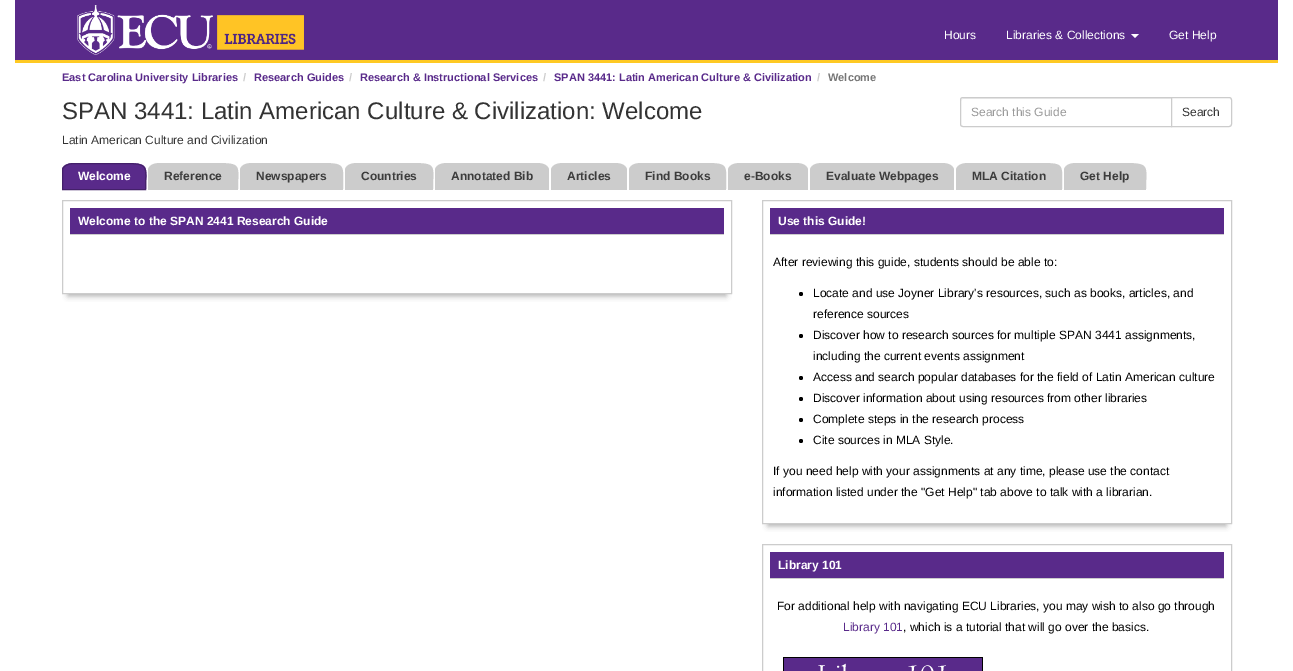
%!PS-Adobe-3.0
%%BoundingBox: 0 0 1293 671
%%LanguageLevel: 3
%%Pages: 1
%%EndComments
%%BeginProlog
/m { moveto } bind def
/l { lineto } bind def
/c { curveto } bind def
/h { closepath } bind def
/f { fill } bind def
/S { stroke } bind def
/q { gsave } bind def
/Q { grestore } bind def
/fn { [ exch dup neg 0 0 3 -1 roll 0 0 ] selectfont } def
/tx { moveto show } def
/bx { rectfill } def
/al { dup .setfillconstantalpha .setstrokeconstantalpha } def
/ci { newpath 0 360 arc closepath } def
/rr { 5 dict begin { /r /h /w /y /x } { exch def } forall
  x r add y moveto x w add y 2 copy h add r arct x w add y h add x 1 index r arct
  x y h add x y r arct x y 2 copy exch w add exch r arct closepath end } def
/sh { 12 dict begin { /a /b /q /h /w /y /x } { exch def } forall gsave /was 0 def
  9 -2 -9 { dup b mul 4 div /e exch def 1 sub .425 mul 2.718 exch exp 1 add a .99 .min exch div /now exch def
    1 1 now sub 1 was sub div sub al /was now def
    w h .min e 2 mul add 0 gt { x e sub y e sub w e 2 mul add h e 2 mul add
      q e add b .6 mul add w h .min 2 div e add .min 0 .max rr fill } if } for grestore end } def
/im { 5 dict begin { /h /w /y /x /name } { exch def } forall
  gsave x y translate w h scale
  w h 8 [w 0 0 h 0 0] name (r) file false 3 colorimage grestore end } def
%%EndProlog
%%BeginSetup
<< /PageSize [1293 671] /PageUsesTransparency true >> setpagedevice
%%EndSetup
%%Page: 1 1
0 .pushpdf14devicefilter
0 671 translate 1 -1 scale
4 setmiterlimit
1 setgray
0 0 1293 671 bx
0.349 0.165 0.541 setrgbcolor
15 0 1263 60 bx
0.996 0.788 0.137 setrgbcolor
15 60 1263 3 bx
(image0.raw) 77 5 227 50 im
/LiberationSans-Regular 12 fn
1 setgray
(Hours) 944 39 tx
(Libraries & Collections) 1006 39 tx
1131 34 m 1139 34 l 1135 38 l h f
(Get Help) 1169 39 tx
/LiberationSans-Bold 11 fn
0.349 0.165 0.541 setrgbcolor
(East Carolina University Libraries) 62 81 tx
0.8 setgray
(/) 243 81 tx
0.349 0.165 0.541 setrgbcolor
(Research Guides) 254 81 tx
0.8 setgray
(/) 349 81 tx
0.349 0.165 0.541 setrgbcolor
(Research & Instructional Services) 360 81 tx
0.8 setgray
(/) 543 81 tx
0.349 0.165 0.541 setrgbcolor
(SPAN 3441: Latin American Culture & Civilization) 554 81 tx
0.8 setgray
(/) 817 81 tx
0.463 setgray
(Welcome) 828 81 tx
/LiberationSans-Regular 24 fn
0.2 setgray
(SPAN 3441: Latin American Culture & Civilization: Welcome) 62 119 tx
/LiberationSans-Regular 12 fn
(Latin American Culture and Civilization) 62 144 tx
0.925 setgray
963 99 m 1171 99 l 1171 98 l 963 98 l 962 99 l 961 101 l 961 100 962 99 963 99 c h f
0.8 setgray
963 97.5 m 1171.5 97.5 l 1171.5 126.5 l 963 126.5 l 961.5 126.5 960.5 125.5 960.5 124 c 960.5 100 l 960.5 98.5 961.5 97.5 963 97.5 c h S
0.6 setgray
(Search this Guide) 971 116 tx
1 setgray
1171.5 97.5 m 1229 97.5 l 1230.5 97.5 1231.5 98.5 1231.5 100 c 1231.5 124 l 1231.5 125.5 1230.5 126.5 1229 126.5 c 1171.5 126.5 l h q f Q
0.8 setgray
S
0.2 setgray
(Search) 1182 116 tx
0.349 0.165 0.541 setrgbcolor
74 163 m 124 163 l 151 163 146 166 146 190 c 62 190 l 62 170 l 62 166 67 163 74 163 c h f
0.267 0.125 0.416 setrgbcolor
74 163.5 m 124 163.5 l 150 163.5 145.5 166 145.5 189.5 c 62.5 189.5 l 62.5 170 l 62.5 166.5 67.5 163.5 74 163.5 c h S
/LiberationSans-Bold 12 fn
1 setgray
(Welcome) 78 180 tx
0.8 setgray
160 163 m 215 163 l 243 163 238 165 238 190 c 148 190 l 148 170 l 148 166 153 163 160 163 c h f
0.235 setgray
(Reference) 164 180 tx
0.8 setgray
252 163 m 318 163 l 347 163 343 164 343 190 c 240 190 l 240 170 l 240 166 245 163 252 163 c h f
0.235 setgray
(Newspapers) 256 180 tx
0.8 setgray
357 163 m 410 163 l 438 163 433 165 433 190 c 345 190 l 345 170 l 345 166 350 163 357 163 c h f
0.235 setgray
(Countries) 361 180 tx
0.8 setgray
447 163 m 537 163 l 544 163 549 166 549 170 c 549 190 l 435 190 l 435 170 l 435 166 440 163 447 163 c h f
0.235 setgray
(Annotated Bib) 451 180 tx
0.8 setgray
563 163 m 615 163 l 622 163 627 166 627 170 c 627 190 l 551 190 l 551 170 l 551 166 556 163 563 163 c h f
0.235 setgray
(Articles) 567 180 tx
0.8 setgray
641 163 m 702 163 l 730 163 726 164 726 190 c 629 190 l 629 170 l 629 166 634 163 641 163 c h f
0.235 setgray
(Find Books) 645 180 tx
0.8 setgray
740 163 m 796 163 l 803 163 808 166 808 170 c 808 190 l 728 190 l 728 170 l 728 166 733 163 740 163 c h f
0.235 setgray
(e-Books) 744 180 tx
0.8 setgray
822 163 m 942 163 l 949 163 954 166 954 170 c 954 190 l 810 190 l 810 170 l 810 166 815 163 822 163 c h f
0.235 setgray
(Evaluate Webpages) 826 180 tx
0.8 setgray
968 163 m 1036 163 l 1066 163 1062 163 1062 190 c 956 190 l 956 170 l 956 166 961 163 968 163 c h f
0.235 setgray
(MLA Citation) 972 180 tx
0.8 setgray
1076 163 m 1124 163 l 1151 163 1146 166 1146 190 c 1064 190 l 1064 170 l 1064 166 1069 163 1076 163 c h f
0.235 setgray
(Get Help) 1080 180 tx
q
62 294 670 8 rectclip
0.667 setgray
68 214 658 82 0 3 1 sh
Q
0.8 setgray
62.5 200.5 669 93 rectstroke
0.349 0.165 0.541 setrgbcolor
70 208 654 26 bx
0.8 setgray
70 234 654 1 bx
1 setgray
(Welcome to the SPAN 2441 Research Guide) 78 225 tx
q
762 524 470 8 rectclip
0.667 setgray
768 214 458 312 0 3 1 sh
Q
0.8 setgray
762.5 200.5 469 323 rectstroke
0.349 0.165 0.541 setrgbcolor
770 208 454 26 bx
0.8 setgray
770 234 454 1 bx
1 setgray
(Use this Guide!) 778 225 tx
/LiberationSans-Regular 12 fn
0 setgray
(After reviewing this guide, students should be able to:) 773 266 tx
801 294 2 ci f
(Locate and use Joyner Library's resources, such as books, articles, and) 813 297 tx
(reference sources) 813 318 tx
801 336 2 ci f
(Discover how to research sources for multiple SPAN 3441 assignments,) 813 339 tx
(including the current events assignment) 813 360 tx
801 378 2 ci f
(Access and search popular databases for the field of Latin American culture) 813 381 tx
801 399 2 ci f
(Discover information about using resources from other libraries) 813 402 tx
801 420 2 ci f
(Complete steps in the research process) 813 423 tx
801 441 2 ci f
(Cite sources in MLA Style.) 813 444 tx
(If you need help with your assignments at any time, please use the contact) 773 475 tx
(information listed under the "Get Help" tab above to talk with a librarian.) 773 496 tx
0.8 setgray
762.5 544.5 469 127 rectstroke
0.349 0.165 0.541 setrgbcolor
770 552 454 26 bx
0.8 setgray
770 578 454 1 bx
/LiberationSans-Bold 12 fn
1 setgray
(Library 101) 778 569 tx
/LiberationSans-Regular 12 fn
0 setgray
(For additional help with navigating ECU Libraries, you may wish to also go through) 777 610 tx
0.349 0.165 0.541 setrgbcolor
(Library 101) 843 631 tx
0 setgray
(, which is a tutorial that will go over the basics.) 903 631 tx
(image1.raw) 783 657 200 14 im
.poppdf14devicefilter showpage
%%EOF
